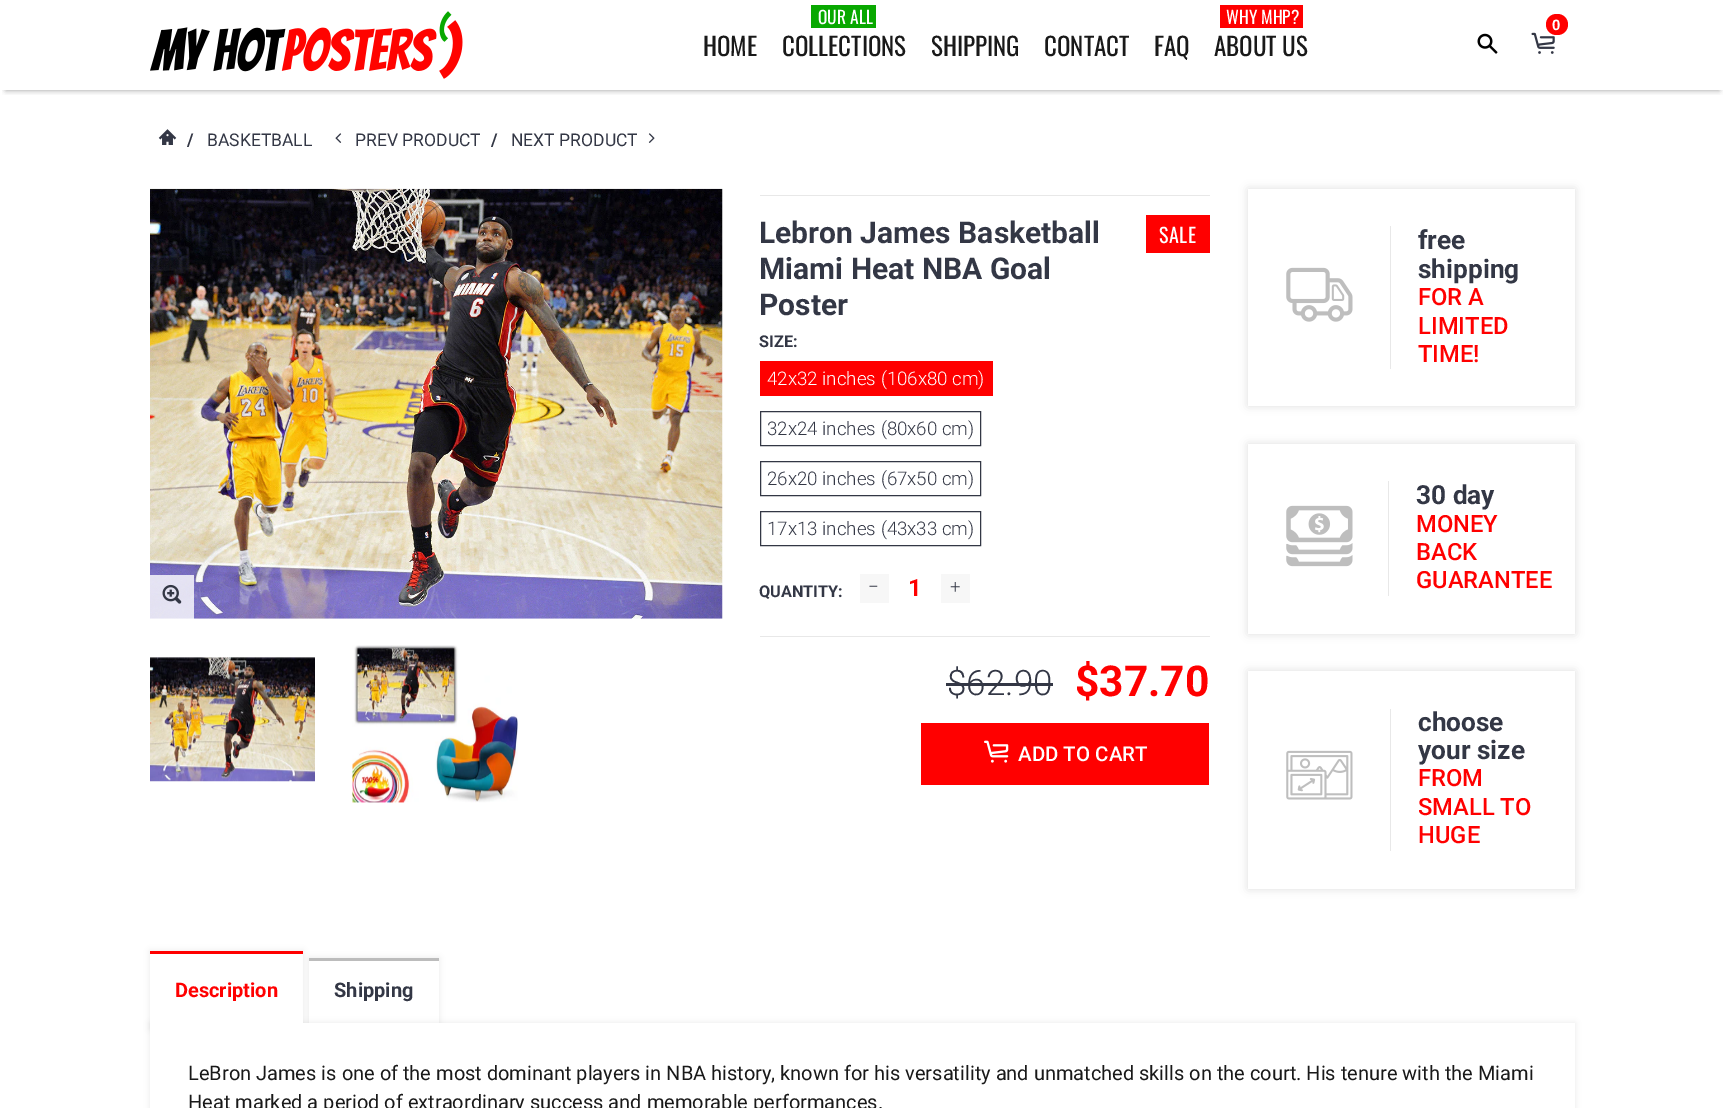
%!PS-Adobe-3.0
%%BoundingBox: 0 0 1724 1108
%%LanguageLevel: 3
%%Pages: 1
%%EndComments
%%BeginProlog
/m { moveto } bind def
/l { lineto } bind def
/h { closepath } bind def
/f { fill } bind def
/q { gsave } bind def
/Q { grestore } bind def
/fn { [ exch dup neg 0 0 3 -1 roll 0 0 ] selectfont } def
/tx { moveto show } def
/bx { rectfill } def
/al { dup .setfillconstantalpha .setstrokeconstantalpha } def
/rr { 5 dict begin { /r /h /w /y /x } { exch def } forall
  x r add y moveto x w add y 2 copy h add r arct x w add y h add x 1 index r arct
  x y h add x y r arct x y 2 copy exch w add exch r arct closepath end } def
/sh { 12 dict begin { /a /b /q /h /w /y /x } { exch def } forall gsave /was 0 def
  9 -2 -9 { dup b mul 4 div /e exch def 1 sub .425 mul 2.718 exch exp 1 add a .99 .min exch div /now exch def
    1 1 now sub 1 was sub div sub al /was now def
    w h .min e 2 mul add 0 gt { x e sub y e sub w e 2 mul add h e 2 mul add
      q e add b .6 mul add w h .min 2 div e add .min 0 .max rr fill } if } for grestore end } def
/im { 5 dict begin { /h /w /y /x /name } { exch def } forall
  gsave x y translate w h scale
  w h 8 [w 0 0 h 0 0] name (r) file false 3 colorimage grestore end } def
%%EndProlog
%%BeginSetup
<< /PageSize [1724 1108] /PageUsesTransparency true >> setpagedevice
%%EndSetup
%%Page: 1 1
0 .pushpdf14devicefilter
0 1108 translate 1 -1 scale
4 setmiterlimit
1 setgray
0 0 1724 1108 bx
q
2 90 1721 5 rectclip
0 setgray
6 13 1713 77 0 3 0.4 sh
Q
(image0.raw) 150 11 313 68 im
/Oswald-Regular 25 fn
0.098 setgray
(HOME) 703 56 tx
0.031 0.659 0 setrgbcolor
811 5 65 23 bx
/Oswald-Regular 17.5 fn
1 setgray
(OUR ALL) 818 24 tx
/Oswald-Regular 25 fn
0.098 setgray
(COLLECTIONS) 782 56 tx
(SHIPPING) 931 56 tx
(CONTACT) 1044 56 tx
(FAQ) 1154 56 tx
1 0 0 setrgbcolor
1220 5 83 23 bx
/Oswald-Regular 17.5 fn
1 setgray
(WHY MHP?) 1226 24 tx
/Oswald-Regular 25 fn
0.098 setgray
(ABOUT US) 1214 56 tx
(image1.raw) 1531 32 24 22 im
1 0 0 setrgbcolor
1546 14 22 21 10.5 rr f
/LiberationSans-Bold 15 fn
1 setgray
(0) 1552 30 tx
(image2.raw) 1477 33 21 21 im
(image3.raw) 158 129 19 16 im
/Roboto-Bold 17.5 fn
0.2 0.216 0.271 setrgbcolor
(/) 187 146 tx
/Roboto-Regular 17.5 fn
(BASKETBALL) 207 146 tx
(image4.raw) 335 133 7 10 im
(PREV PRODUCT) 355 146 tx
/Roboto-Bold 17.5 fn
(/) 491 146 tx
/Roboto-Regular 17.5 fn
(NEXT PRODUCT) 511 146 tx
(image5.raw) 648 133 7 10 im
(image6.raw) 150 188 573 431 im
0.8 al
1 setgray
150 575 44 44 bx
1 al
(image7.raw) 162 584 20 20 im
(image8.raw) 150 657 165 125 im
(image9.raw) 352 645 166 158 im
0.91 setgray
760 195 450 1 bx
/Roboto-Bold 30 fn
0.2 0.216 0.271 setrgbcolor
(Lebron James Basketball) 759 243 tx
(Miami Heat NBA Goal) 759 279 tx
(Poster) 759 315 tx
1 0 0 setrgbcolor
1146 215 64 38 bx
/Oswald-Regular 20 fn
1 setgray
1159 243 m 0.5 0 (SALE) ashow
0.91 setgray
760 636 450 1 bx
/Roboto-Bold 16.25 fn
0.2 0.216 0.271 setrgbcolor
(SIZE:) 759 347 tx
1 0 0 setrgbcolor
760 361 233 35 bx
/Roboto-Light 18.75 fn
1 setgray
(42x32 inches \(106x80 cm\)) 767 385 tx
0.2 0.216 0.271 setrgbcolor
760.5 411.5 220 34 rectstroke
(32x24 inches \(80x60 cm\)) 767 435 tx
760.5 461.5 220 34 rectstroke
(26x20 inches \(67x50 cm\)) 767 485 tx
760.5 511.5 220 34 rectstroke
(17x13 inches \(43x33 cm\)) 767 535 tx
/Roboto-Bold 16.25 fn
(QUANTITY:) 759 597 tx
0.969 setgray
860 574 29 29 bx
/Roboto-Light 18.75 fn
0.2 0.216 0.271 setrgbcolor
(−) 868 593 tx
/Roboto-Bold 23.75 fn
1 0 0 setrgbcolor
(1) 908 596 tx
0.969 setgray
941 574 29 29 bx
/Roboto-Light 18.75 fn
0.2 0.216 0.271 setrgbcolor
(+) 950 593 tx
/Roboto-Light 35 fn
($62.90) 947 695 tx
946 683 107 3 bx
/Roboto-Bold 42.5 fn
1 0 0 setrgbcolor
($37.70) 1075 696 tx
921 723 288 62 bx
(image10.raw) 984 740 25 23 im
/Roboto-Medium 20.5 fn
1 setgray
(ADD TO CART) 1018 761 tx
q
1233 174 m 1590 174 l 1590 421 l 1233 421 l h 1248 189 m 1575 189 l 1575 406 l 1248 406 l h eoclip newpath
0 setgray
1248 189 327 217 0 4.5 0.12 sh
Q
0.91 setgray
1390 226 1 143 bx
(image11.raw) 1286 267 67 55 im
/Roboto-Bold 26.25 fn
0.2 0.216 0.271 setrgbcolor
(free) 1418 249 tx
(shipping) 1418 278 tx
/Roboto-Medium 23.75 fn
1 0 0 setrgbcolor
(FOR A) 1418 305 tx
(LIMITED) 1418 334 tx
(TIME!) 1418 362 tx
0 setgray
1248 444 327 190 0 4.5 0.12 sh
1 setgray
1248 444 327 190 bx
0.91 setgray
1388 481 1 115 bx
(image12.raw) 1286 505 67 62 im
/Roboto-Bold 26.25 fn
0.2 0.216 0.271 setrgbcolor
(30 day) 1416 504 tx
/Roboto-Medium 23.75 fn
1 0 0 setrgbcolor
(MONEY) 1416 532 tx
(BACK) 1416 560 tx
(GUARANTEE) 1416 588 tx
0 setgray
1248 671 327 218 0 4.5 0.12 sh
1 setgray
1248 671 327 218 bx
0.91 setgray
1390 709 1 142 bx
(image13.raw) 1286 750 67 50 im
/Roboto-Bold 26.25 fn
0.2 0.216 0.271 setrgbcolor
(choose) 1418 731 tx
(your size) 1418 759 tx
/Roboto-Medium 23.75 fn
1 0 0 setrgbcolor
(FROM) 1418 786 tx
(SMALL TO) 1418 815 tx
(HUGE) 1418 843 tx
0 setgray
150 951 153 78 0 3 0.08 sh
1 setgray
150 954 153 56 bx
1 0 0 setrgbcolor
150 951 153 3 bx
/Roboto-Bold 20 fn
(Description) 175 997 tx
0 setgray
309 958 130 71 0 3 0.08 sh
1 setgray
309 961 130 62 bx
0 setgray
150 1023 1425 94 0 3 0.08 sh
1 setgray
150 1010 153 13 bx
0.737 setgray
309 958 130 3 bx
0.2 0.216 0.271 setrgbcolor
(Shipping) 334 997 tx
1 setgray
150 1023 1425 85 bx
/Roboto-Regular 20 fn
0.098 setgray
(LeBron James is one of the most dominant players in NBA history, known for his versatility and unmatched skills on the court. His tenure with the Miami) 188 1080 tx
(Heat marked a period of extraordinary success and memorable performances.) 188 1109 tx
.poppdf14devicefilter showpage
%%EOF
